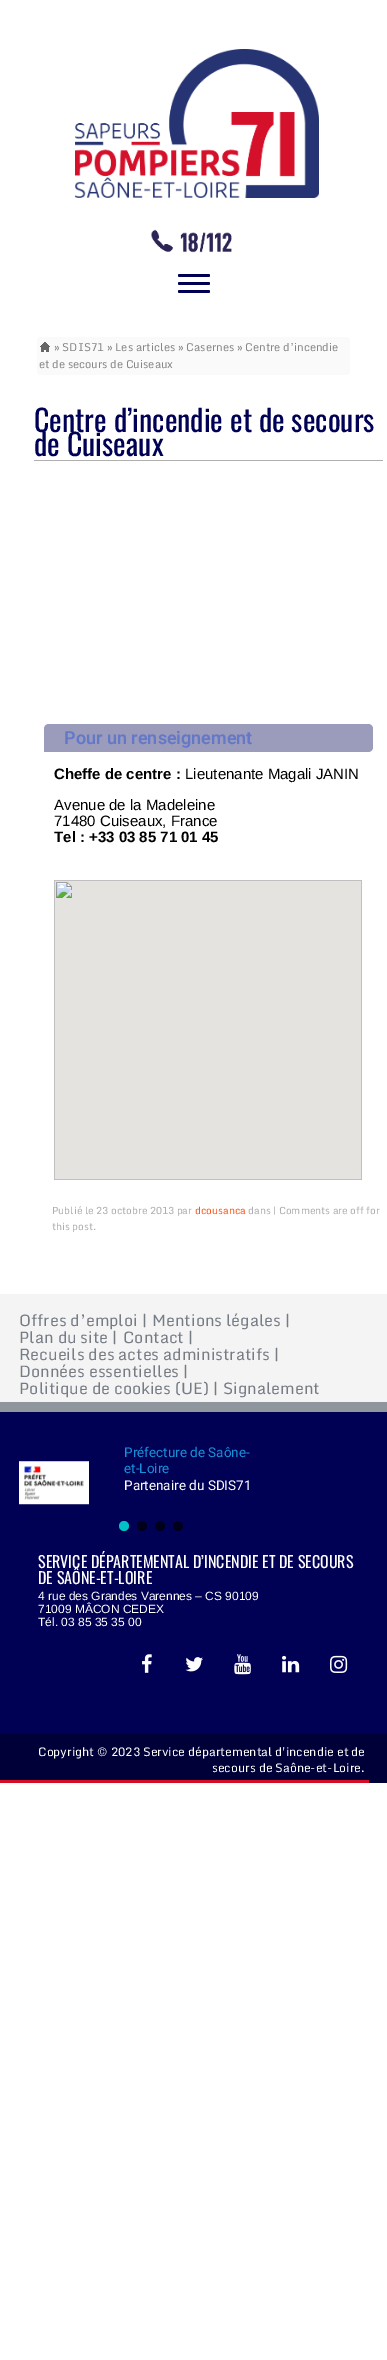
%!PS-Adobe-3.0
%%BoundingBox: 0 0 387 2360
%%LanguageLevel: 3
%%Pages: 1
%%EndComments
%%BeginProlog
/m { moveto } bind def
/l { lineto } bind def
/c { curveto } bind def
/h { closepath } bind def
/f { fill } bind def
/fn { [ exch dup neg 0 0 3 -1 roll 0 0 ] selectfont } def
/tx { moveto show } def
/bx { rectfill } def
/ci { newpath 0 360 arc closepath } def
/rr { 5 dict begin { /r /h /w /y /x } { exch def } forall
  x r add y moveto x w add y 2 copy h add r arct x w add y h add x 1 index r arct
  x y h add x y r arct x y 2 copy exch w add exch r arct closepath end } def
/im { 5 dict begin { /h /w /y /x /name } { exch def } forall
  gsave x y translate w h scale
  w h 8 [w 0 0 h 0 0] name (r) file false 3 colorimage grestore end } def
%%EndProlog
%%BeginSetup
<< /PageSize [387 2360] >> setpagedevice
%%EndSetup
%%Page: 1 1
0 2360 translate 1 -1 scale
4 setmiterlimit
1 setgray
0 0 387 2360 bx
(image0.raw) 75 49 244 149 im
(image1.raw) 151 229 81 24 im
0 0 0.333 setrgbcolor
178 274 32 3 1.5 rr f
178 282 32 3 1.5 rr f
178 290 32 3 1.5 rr f
0.98 setgray
37 337 313 38 4 rr f
(image2.raw) 40 342 10 10 im
/Monda-Regular 11 fn
0.522 setgray
(» SDIS71 » Les articles » Casernes » Centre d’incendie) 54 351 tx
(et de secours de Cuiseaux) 39 368 tx
0.686 0.686 0.69 setrgbcolor
34 460 349 1 bx
/Oswald-Regular 30 fn
0 0 0.333 setrgbcolor
(Centre d’incendie et de secours) 34 432 tx
(de Cuiseaux) 34 456 tx
0.608 0.608 0.737 setrgbcolor
49 724 m 368 724 l 371 724 373 726 373 729 c 373 747 l 373 750 371 752 368 752 c 44 752 l 44 729 l 44 726 46 724 49 724 c h f
/Roboto-SemiBold 18 fn
0.392 0.471 0.784 setrgbcolor
(Pour un renseignement) 64 744 tx
/LiberationSans-Bold 15 fn
0 setgray
(Cheffe de centre :) 54 779 tx
/LiberationSans-Regular 15 fn
(Lieutenante Magali JANIN) 185 779 tx
(Avenue de la Madeleine) 54 810 tx
(71480 Cuiseaux, France) 54 826 tx
/LiberationSans-Bold 15 fn
(Tel : +33 03 85 71 01 45) 54 842 tx
(image3.raw) 54 880 308 300 im
/Monda-Regular 10 fn
0.678 0.682 0.69 setrgbcolor
(Publié le 23 octobre 2013 par) 52 1214 tx
1 0.333 0.086 setrgbcolor
(dcousanca) 195 1214 tx
0.678 0.682 0.69 setrgbcolor
(dans | Comments are off for) 248 1214 tx
(this post.) 52 1230 tx
0.957 0.957 0.961 setrgbcolor
0 1294 387 108 bx
/Monda-Regular 16 fn
0.463 0.486 0.518 setrgbcolor
(Offres d’emploi |) 19 1326 tx
(Mentions légales |) 152 1326 tx
(Plan du site |) 19 1343 tx
(Contact |) 123 1343 tx
(Recueils des actes administratifs |) 19 1360 tx
(Données essentielles |) 19 1377 tx
(Politique de cookies \(UE\) |) 19 1394 tx
(Signalement) 223 1394 tx
0 0 0.333 setrgbcolor
0 1412 387 322 bx
0.565 0.588 0.62 setrgbcolor
0 1402 387 10 bx
(image4.raw) 19 1461 70 44 im
/Roboto-Regular 13.5 fn
0.094 0.565 0.843 setrgbcolor
(Préfecture de Saône-) 124 1457 tx
(et-Loire) 124 1473 tx
1 setgray
(Partenaire du SDIS71) 124 1490 tx
0 0.757 0.769 setrgbcolor
124 1526 5 ci f
0 0 0.11 setrgbcolor
142 1526 5 ci f
160 1526 5 ci f
178 1526 5 ci f
/Oswald-Regular 16 fn
1 setgray
(SERVICE DÉPARTEMENTAL D’INCENDIE ET DE SECOURS) 38 1568 tx
(DE SAÔNE-ET-LOIRE) 38 1584 tx
/LiberationSans-Regular 12 fn
(4 rue des Grandes Varennes – CS 90109) 38 1600 tx
(71009 MÂCON CEDEX) 38 1613 tx
(Tél. 03 85 35 35 00) 38 1626 tx
(image5.raw) 142 1654 10 19 im
(image6.raw) 185 1657 18 15 im
(image7.raw) 234 1654 17 21 im
(image8.raw) 282 1655 18 18 im
(image9.raw) 330 1655 18 18 im
0 0 0.22 setrgbcolor
0 1734 387 49 bx
0.839 0.047 0.141 setrgbcolor
0 1780 369 3 bx
/Monda-Regular 12 fn
1 setgray
(Copyright © 2023 Service départemental d'incendie et de) 38 1756 tx
(secours de Saône-et-Loire.) 212 1772 tx
showpage
%%EOF
